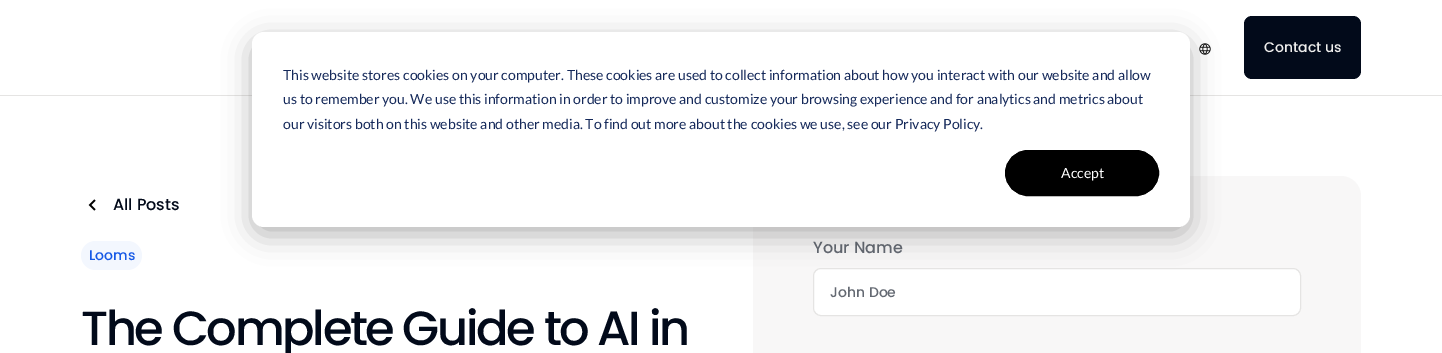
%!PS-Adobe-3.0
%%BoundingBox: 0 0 1442 353
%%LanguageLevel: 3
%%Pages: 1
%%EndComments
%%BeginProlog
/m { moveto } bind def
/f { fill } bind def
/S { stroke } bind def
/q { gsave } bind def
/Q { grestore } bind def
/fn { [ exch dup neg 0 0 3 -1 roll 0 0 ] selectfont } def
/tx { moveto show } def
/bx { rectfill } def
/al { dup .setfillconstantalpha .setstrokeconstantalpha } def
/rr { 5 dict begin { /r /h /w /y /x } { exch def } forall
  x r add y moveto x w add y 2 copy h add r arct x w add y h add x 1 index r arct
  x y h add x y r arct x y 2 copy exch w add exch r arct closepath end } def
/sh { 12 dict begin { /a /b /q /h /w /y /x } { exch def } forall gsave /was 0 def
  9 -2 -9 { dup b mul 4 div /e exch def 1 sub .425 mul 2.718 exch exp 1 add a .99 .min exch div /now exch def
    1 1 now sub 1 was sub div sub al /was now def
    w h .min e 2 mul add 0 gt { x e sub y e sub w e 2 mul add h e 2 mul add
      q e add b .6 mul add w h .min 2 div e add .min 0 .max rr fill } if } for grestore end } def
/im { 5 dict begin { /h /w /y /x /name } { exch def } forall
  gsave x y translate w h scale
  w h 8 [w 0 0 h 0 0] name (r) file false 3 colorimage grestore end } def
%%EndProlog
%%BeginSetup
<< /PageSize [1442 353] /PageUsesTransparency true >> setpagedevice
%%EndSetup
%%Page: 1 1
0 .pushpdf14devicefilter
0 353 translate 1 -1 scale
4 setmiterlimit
1 setgray
0 0 1442 353 bx
0.898 0.894 0.89 setrgbcolor
0 95 1442 1 bx
(image0.raw) 1199 43 12 12 im
0.008 0.039 0.102 setrgbcolor
1244 16 117 63 8 rr f
/Poppins-Medium 14 fn
0.937 0.933 0.929 setrgbcolor
(Contact us) 1264 52 tx
(image1.raw) 88 199 8 12 im
/Poppins-Medium 16 fn
0.008 0.039 0.102 setrgbcolor
(All Posts) 113 210 tx
0.953 0.969 0.996 setrgbcolor
81 241 61 29 14.5 rr f
/Poppins-Medium 14 fn
0.086 0.349 0.902 setrgbcolor
(Looms) 89 260 tx
/Poppins-Medium 48 fn
0.008 0.039 0.102 setrgbcolor
81 345 m -2.4 0 (The Complete Guide to AI in) ashow
0.973 0.969 0.969 setrgbcolor
753 176 608 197 20 rr f
/Poppins-Medium 16 fn
0.392 0.412 0.447 setrgbcolor
(Your Name) 813 253 tx
1 setgray
813.5 268.5 487 47 7.5 rr q f Q
0.898 0.894 0.89 setrgbcolor
S
/Poppins-Medium 14 fn
0.392 0.412 0.447 setrgbcolor
(John Doe) 830 297 tx
0 setgray
252 40 938 195 12 14 0.28 sh
1 setgray
252 32 938 195 12 rr f
/Lato-Regular 14 fn
0.082 0.161 0.353 setrgbcolor
(This website stores cookies on your computer. These cookies are used to collect information about how you interact with our website and allow) 283 80 tx
(us to remember you. We use this information in order to improve and customize your browsing experience and for analytics and metrics about) 283 104 tx
(our visitors both on this website and other media. To find out more about the cookies we use, see our Privacy Policy.) 283 129 tx
0 setgray
1005.5 150.5 153 45 22.5 rr q f Q
S
1 setgray
(Accept) 1061 178 tx
.poppdf14devicefilter showpage
%%EOF
